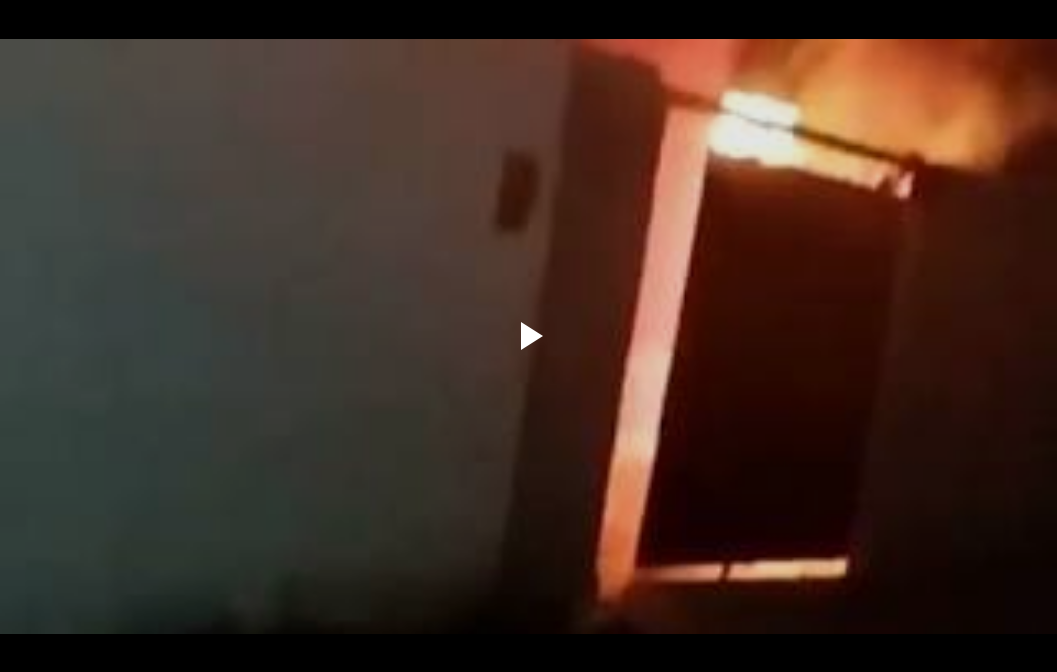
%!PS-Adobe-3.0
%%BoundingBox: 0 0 1057 672
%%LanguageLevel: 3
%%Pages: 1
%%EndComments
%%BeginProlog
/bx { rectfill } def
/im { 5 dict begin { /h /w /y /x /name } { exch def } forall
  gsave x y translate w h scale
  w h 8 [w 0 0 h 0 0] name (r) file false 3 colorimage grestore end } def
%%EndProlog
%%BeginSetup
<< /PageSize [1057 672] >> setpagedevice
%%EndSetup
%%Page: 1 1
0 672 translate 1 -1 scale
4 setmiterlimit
0 setgray
0 0 1057 672 bx
(image0.raw) 0 39 1057 595 im
(image1.raw) 521 322 22 28 im
showpage
%%EOF
